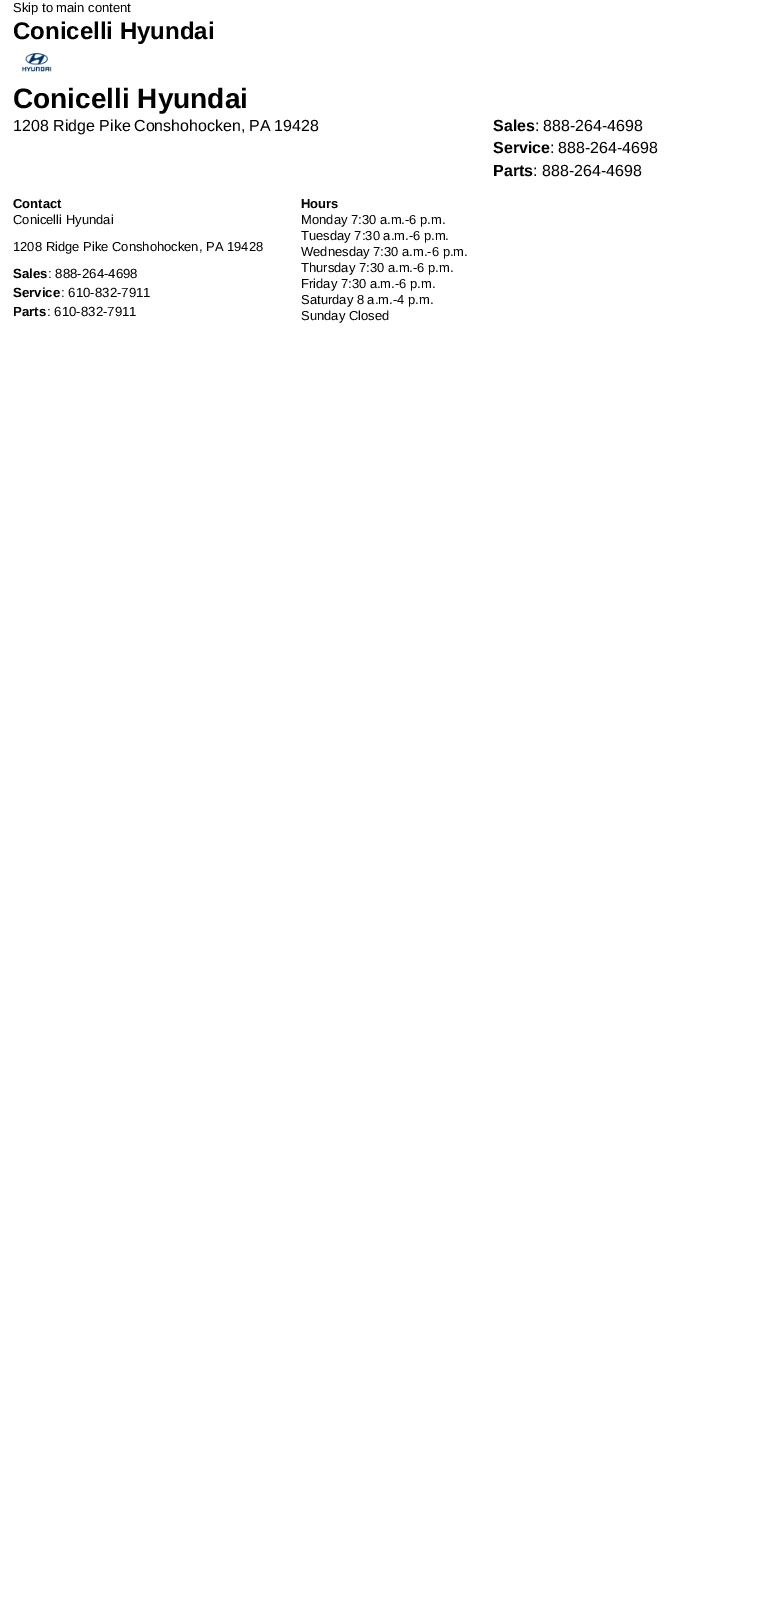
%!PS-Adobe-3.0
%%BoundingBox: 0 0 781 1617
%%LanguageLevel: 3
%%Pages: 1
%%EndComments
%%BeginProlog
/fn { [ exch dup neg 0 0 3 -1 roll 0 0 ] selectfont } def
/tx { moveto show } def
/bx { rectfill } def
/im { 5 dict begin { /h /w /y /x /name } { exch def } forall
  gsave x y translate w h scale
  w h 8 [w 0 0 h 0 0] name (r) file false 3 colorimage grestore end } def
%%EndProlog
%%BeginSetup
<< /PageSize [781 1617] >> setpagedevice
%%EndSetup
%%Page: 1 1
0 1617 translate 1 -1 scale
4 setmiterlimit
1 setgray
0 0 781 1617 bx
/LiberationSans-Regular 13 fn
0 setgray
(Skip to main content) 13 12 tx
/LiberationSans-Bold 24 fn
(Conicelli Hyundai) 13 39 tx
(image0.raw) 21 52 31 20 im
/LiberationSans-Bold 28 fn
(Conicelli Hyundai) 13 108 tx
/LiberationSans-Regular 16 fn
(1208 Ridge Pike) 13 131 tx
(Conshohocken,) 134 131 tx
(PA) 249 131 tx
(19428) 274 131 tx
/LiberationSans-Bold 16 fn
(Sales) 493 131 tx
/LiberationSans-Regular 16 fn
(:) 535 131 tx
(888-264-4698) 543 131 tx
/LiberationSans-Bold 16 fn
(Service) 493 153 tx
/LiberationSans-Regular 16 fn
(:) 550 153 tx
(888-264-4698) 558 153 tx
/LiberationSans-Bold 16 fn
(Parts) 493 176 tx
/LiberationSans-Regular 16 fn
(:) 533 176 tx
(888-264-4698) 542 176 tx
/LiberationSans-Bold 13 fn
(Contact) 13 208 tx
/LiberationSans-Regular 13 fn
(Conicelli Hyundai) 13 224 tx
(1208 Ridge Pike Conshohocken, PA 19428) 13 251 tx
/LiberationSans-Bold 13.25 fn
(Sales) 13 278 tx
/LiberationSans-Regular 13.25 fn
(: 888-264-4698) 48 278 tx
/LiberationSans-Bold 13.25 fn
(Service) 13 297 tx
/LiberationSans-Regular 13.25 fn
(: 610-832-7911) 61 297 tx
/LiberationSans-Bold 13.25 fn
(Parts) 13 316 tx
/LiberationSans-Regular 13.25 fn
(: 610-832-7911) 47 316 tx
/LiberationSans-Bold 13 fn
(Hours) 301 208 tx
/LiberationSans-Regular 13 fn
(Monday 7:30 a.m.-6 p.m.) 301 224 tx
(Tuesday 7:30 a.m.-6 p.m.) 301 240 tx
(Wednesday 7:30 a.m.-6 p.m.) 301 256 tx
(Thursday 7:30 a.m.-6 p.m.) 301 272 tx
(Friday 7:30 a.m.-6 p.m.) 301 288 tx
(Saturday 8 a.m.-4 p.m.) 301 304 tx
(Sunday Closed) 301 320 tx
showpage
%%EOF
